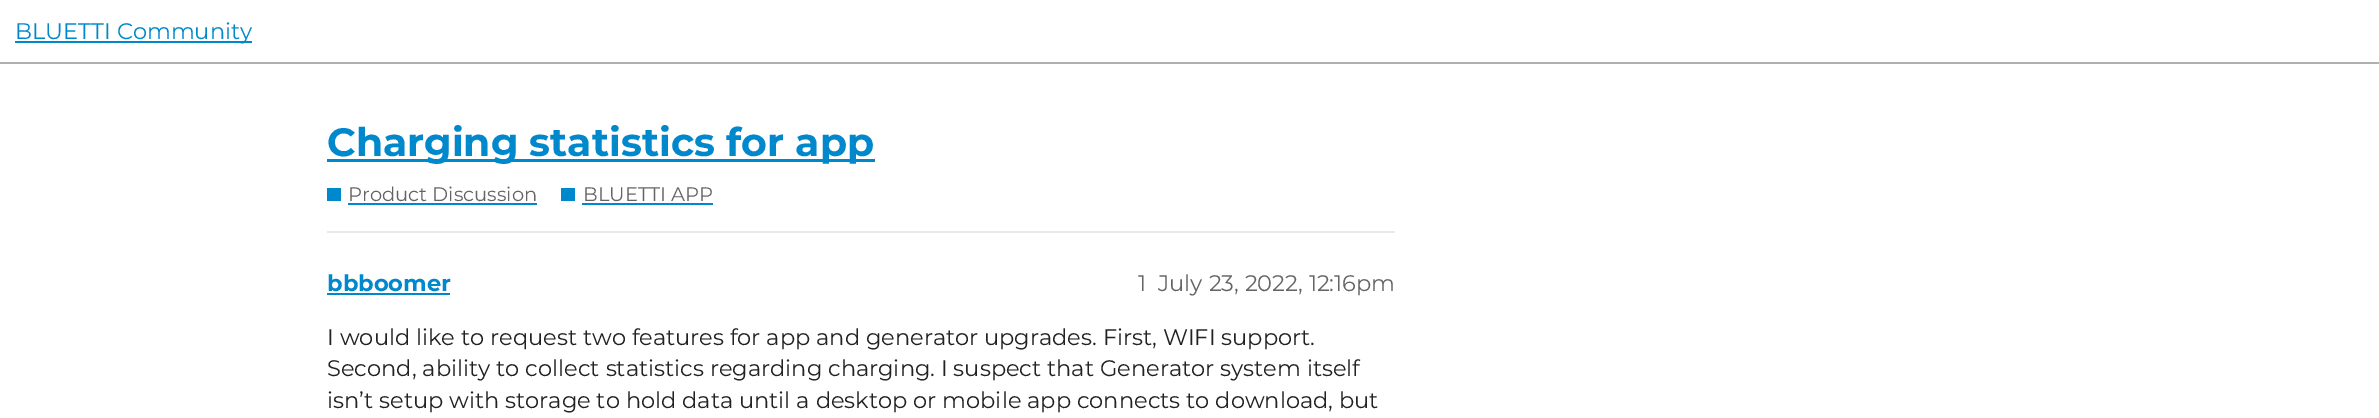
%!PS-Adobe-3.0
%%BoundingBox: 0 0 2379 418
%%LanguageLevel: 3
%%Pages: 1
%%EndComments
%%BeginProlog
/fn { [ exch dup neg 0 0 3 -1 roll 0 0 ] selectfont } def
/tx { moveto show } def
/bx { rectfill } def
%%EndProlog
%%BeginSetup
<< /PageSize [2379 418] >> setpagedevice
%%EndSetup
%%Page: 1 1
0 418 translate 1 -1 scale
4 setmiterlimit
1 setgray
0 0 2379 418 bx
0.686 setgray
0 62 2379 2 bx
0 0.533 0.8 setrgbcolor
15 41 237 2 bx
/Montserrat-Regular 22.5 fn
(BLUETTI Community) 15 39 tx
327 159 548 3 bx
/Montserrat-Bold 39.4 fn
(Charging statistics for app) 327 156 tx
327 188 14 13 bx
/Montserrat-Regular 19.5 fn
0.392 setgray
(Product Discussion) 348 201 tx
0 0.533 0.8 setrgbcolor
348 203 189 2 bx
561 188 14 13 bx
0.392 setgray
(BLUETTI APP) 583 201 tx
0 0.533 0.8 setrgbcolor
582 203 131 2 bx
0.914 setgray
327 231 1068 2 bx
/Montserrat-Bold 22.5 fn
0 0.533 0.8 setrgbcolor
(bbboomer) 327 291 tx
327 293 123 2 bx
/Montserrat-Regular 22.5 fn
0.392 setgray
(1) 1138 291 tx
(July 23, 2022, 12:16pm) 1158 291 tx
0.133 setgray
(I would like to request two features for app and generator upgrades. First, WIFI support.) 327 345 tx
(Second, ability to collect statistics regarding charging. I suspect that Generator system itself) 327 376 tx
(isn’t setup with storage to hold data until a desktop or mobile app connects to download, but) 327 408 tx
showpage
%%EOF
